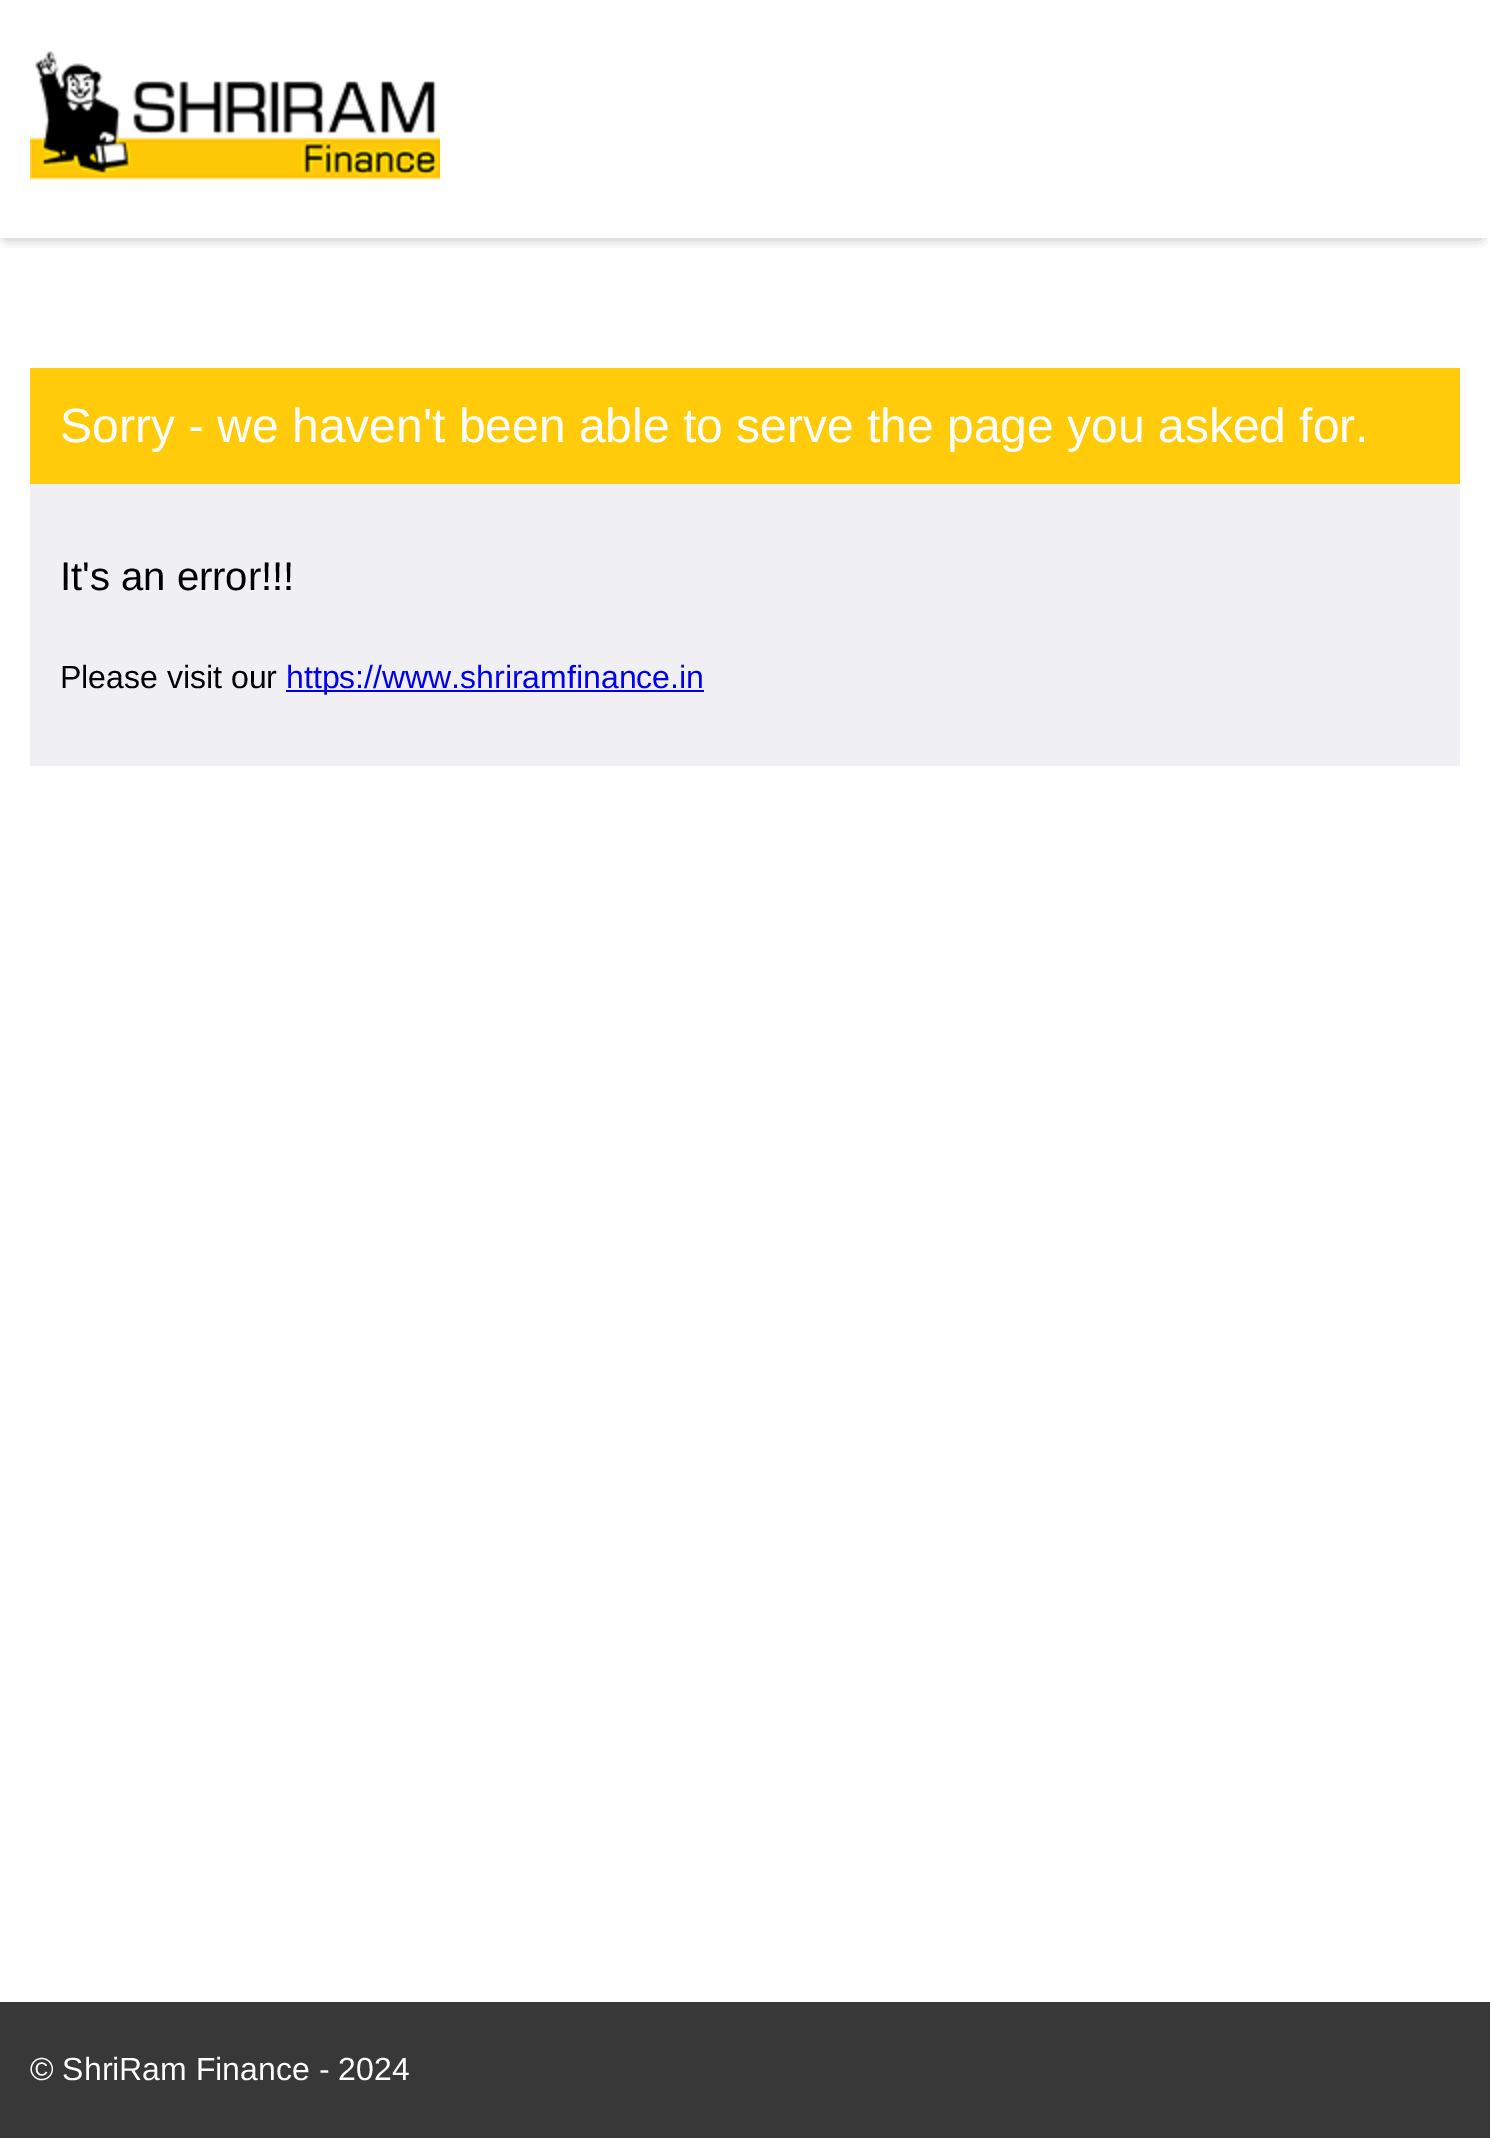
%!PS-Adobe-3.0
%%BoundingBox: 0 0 1490 2138
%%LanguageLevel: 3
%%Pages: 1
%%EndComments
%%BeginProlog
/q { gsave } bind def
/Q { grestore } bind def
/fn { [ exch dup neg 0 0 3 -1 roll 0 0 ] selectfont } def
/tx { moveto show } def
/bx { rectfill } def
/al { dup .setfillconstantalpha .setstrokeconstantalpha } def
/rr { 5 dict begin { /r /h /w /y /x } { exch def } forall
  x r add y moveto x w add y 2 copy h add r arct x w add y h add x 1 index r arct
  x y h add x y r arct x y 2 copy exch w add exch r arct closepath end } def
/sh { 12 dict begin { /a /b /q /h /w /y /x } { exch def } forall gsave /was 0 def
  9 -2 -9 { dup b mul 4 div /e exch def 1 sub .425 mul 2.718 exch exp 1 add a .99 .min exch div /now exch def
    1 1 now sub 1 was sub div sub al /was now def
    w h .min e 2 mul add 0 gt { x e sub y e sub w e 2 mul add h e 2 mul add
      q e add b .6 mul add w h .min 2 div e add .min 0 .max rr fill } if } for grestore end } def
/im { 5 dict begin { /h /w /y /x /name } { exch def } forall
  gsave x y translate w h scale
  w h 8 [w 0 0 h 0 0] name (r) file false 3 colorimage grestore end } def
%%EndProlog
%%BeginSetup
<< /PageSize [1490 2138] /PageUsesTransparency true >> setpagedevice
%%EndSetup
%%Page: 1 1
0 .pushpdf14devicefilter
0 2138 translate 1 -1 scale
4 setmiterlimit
1 setgray
0 0 1490 2138 bx
q
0 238 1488 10 rectclip
0 setgray
6 14 1474 222 0 7 0.4 sh
Q
(image0.raw) 30 51 410 130 im
0.941 0.937 0.957 setrgbcolor
30 484 1430 282 bx
1 0.796 0.043 setrgbcolor
30 368 1430 116 bx
/LiberationSans-Regular 48 fn
1 setgray
(Sorry - we haven't been able to serve the page you asked for.) 60 442 tx
/LiberationSans-Regular 40 fn
0 setgray
(It's an error!!!) 60 590 tx
/LiberationSans-Regular 32 fn
(Please visit our) 60 688 tx
0 0 0.933 setrgbcolor
286 690 418 2 bx
(https://www.shriramfinance.in) 286 688 tx
0.22 setgray
0 2002 1490 136 bx
1 setgray
(© ShriRam Finance - 2024) 30 2080 tx
.poppdf14devicefilter showpage
%%EOF
